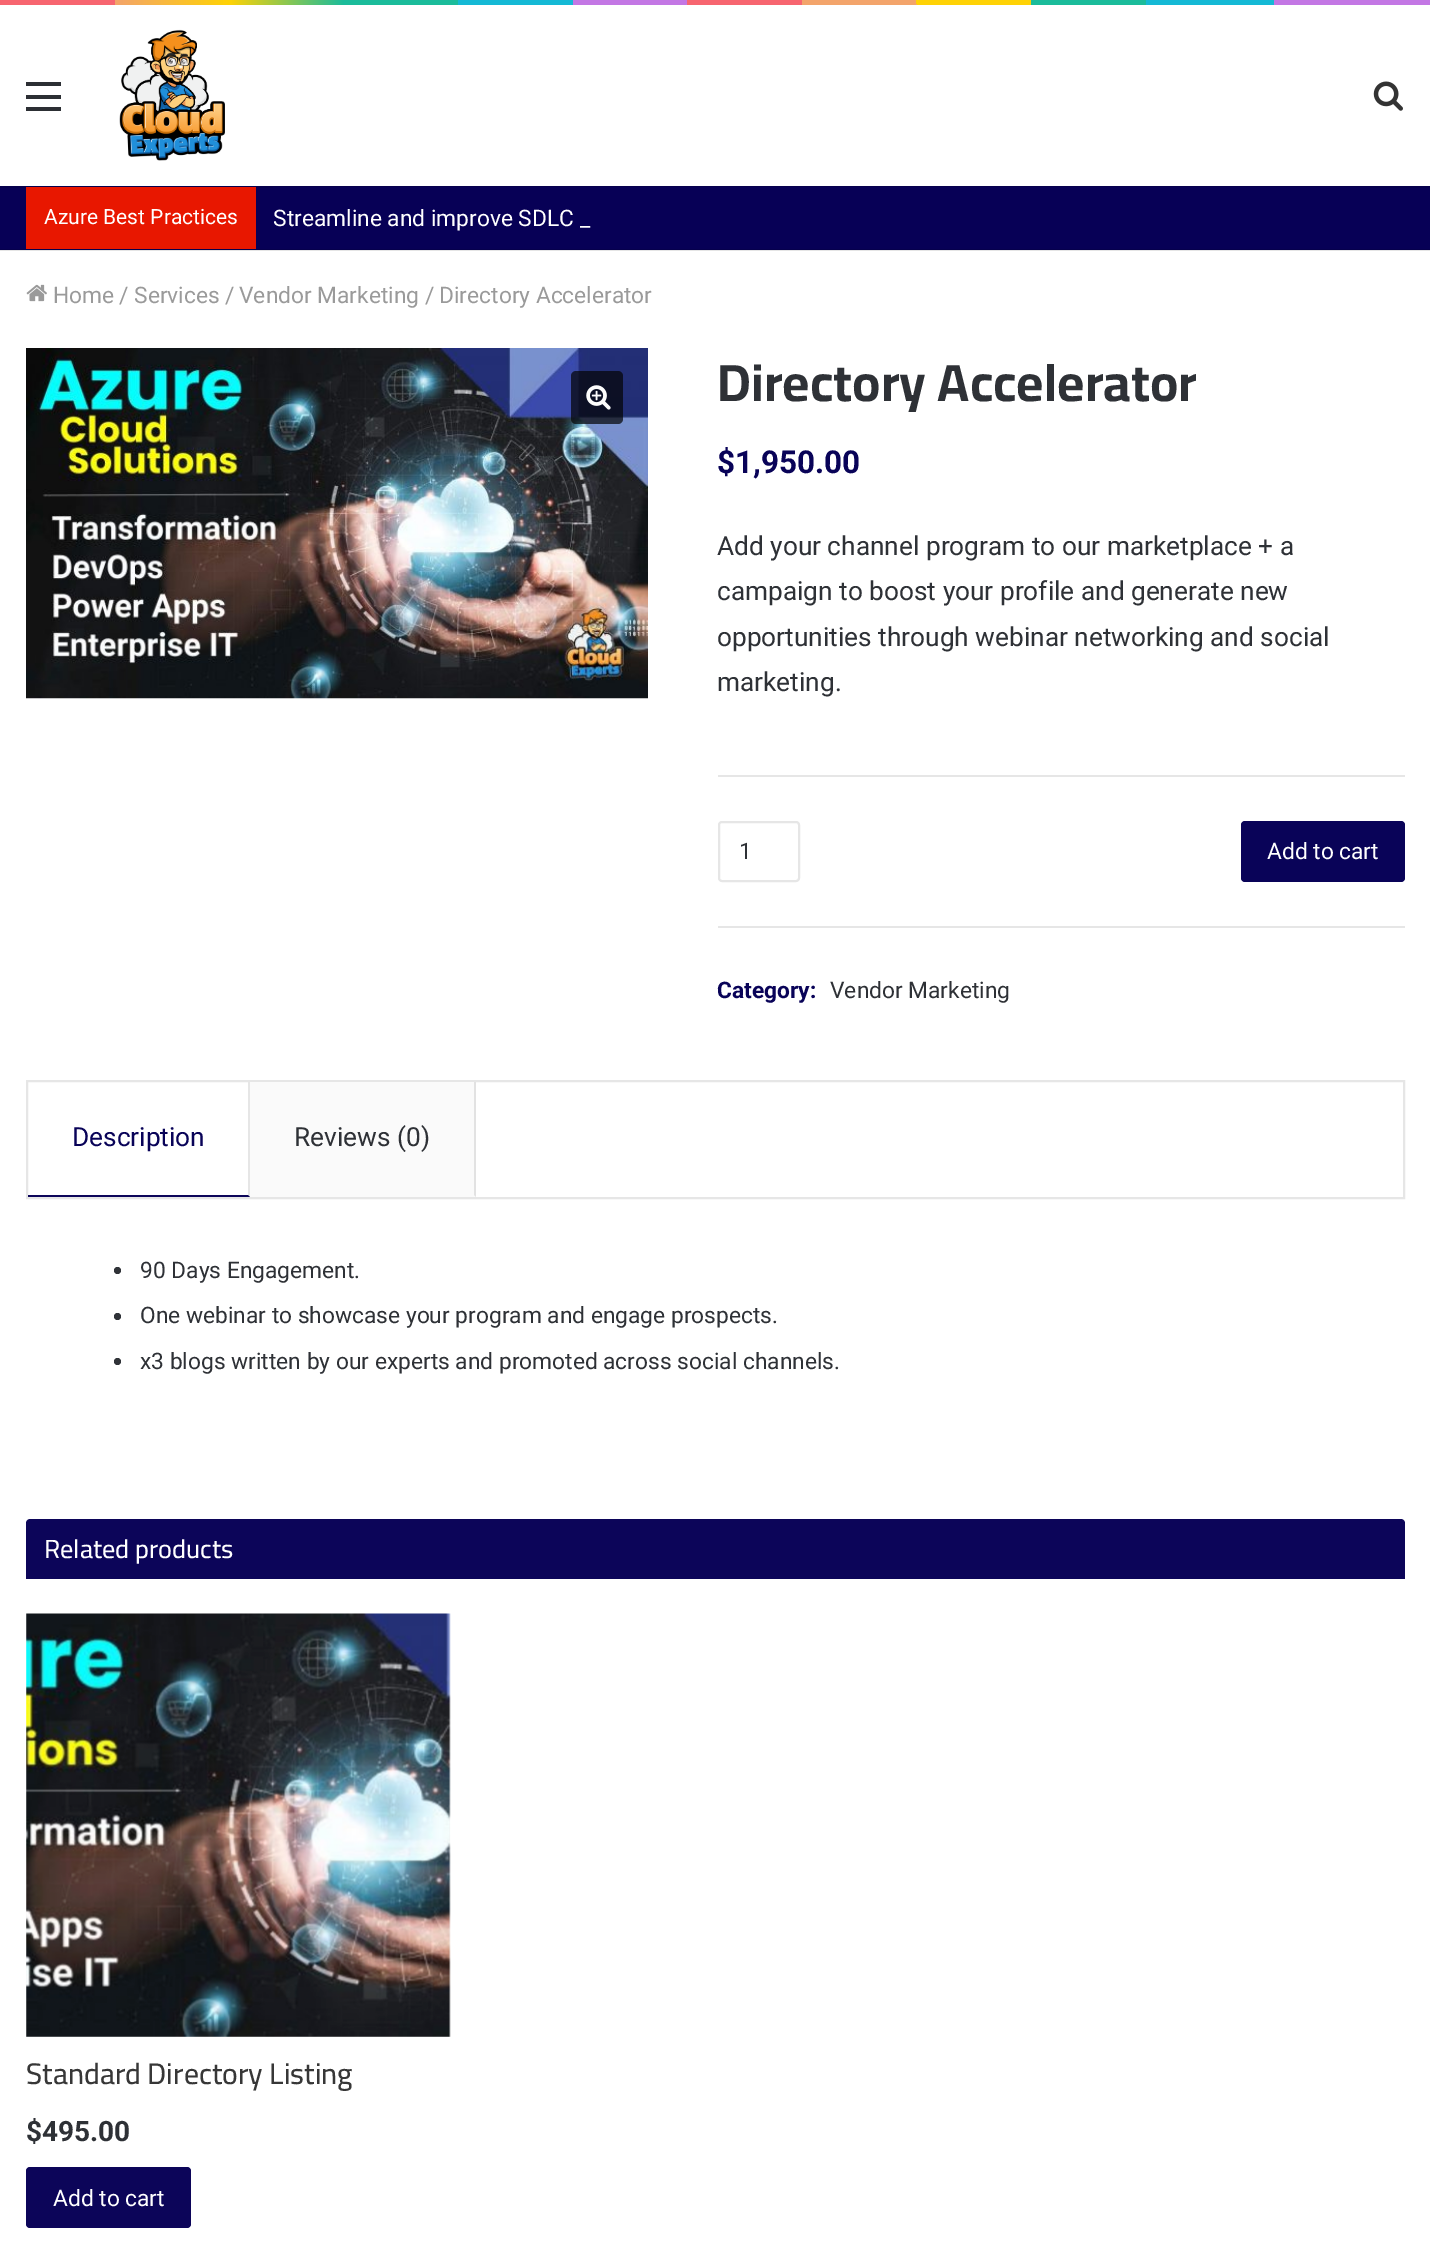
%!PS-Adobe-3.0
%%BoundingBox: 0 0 1430 2263
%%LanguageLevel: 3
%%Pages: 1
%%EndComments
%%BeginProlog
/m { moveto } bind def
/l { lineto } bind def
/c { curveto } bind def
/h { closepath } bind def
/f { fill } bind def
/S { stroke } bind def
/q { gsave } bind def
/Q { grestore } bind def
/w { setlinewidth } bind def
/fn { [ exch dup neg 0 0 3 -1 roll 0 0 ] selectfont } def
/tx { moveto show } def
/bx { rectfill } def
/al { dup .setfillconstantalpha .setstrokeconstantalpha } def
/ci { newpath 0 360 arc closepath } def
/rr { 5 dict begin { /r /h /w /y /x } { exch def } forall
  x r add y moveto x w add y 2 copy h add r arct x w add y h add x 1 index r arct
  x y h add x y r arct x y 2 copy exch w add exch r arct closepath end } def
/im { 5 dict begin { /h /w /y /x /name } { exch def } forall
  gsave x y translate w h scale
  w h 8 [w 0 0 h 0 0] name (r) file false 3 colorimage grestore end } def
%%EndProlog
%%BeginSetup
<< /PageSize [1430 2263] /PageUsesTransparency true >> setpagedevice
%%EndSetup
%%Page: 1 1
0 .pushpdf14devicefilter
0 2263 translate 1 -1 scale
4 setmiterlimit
1 setgray
0 0 1430 2263 bx
q 0 0 m 1430 0 l 1430 5 l 0 5 l h clip newpath
<< /ShadingType 2 /ColorSpace /DeviceRGB /Coords [0 2.6 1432 2.6] /Extend [true true] /Function << /FunctionType 3 /Domain [0 1] /Functions [<< /FunctionType 2 /Domain [0 1] /C0 [0.969 0.396 0.439] /C1 [0.969 0.396 0.439] /N 1 >> << /FunctionType 2 /Domain [0 1] /C0 [0.953 0.643 0.42] /C1 [1 0.824 0.02] /N 1 >> << /FunctionType 2 /Domain [0 1] /C0 [1 0.824 0.02] /C1 [0.106 0.737 0.608] /N 1 >> << /FunctionType 2 /Domain [0 1] /C0 [0.106 0.737 0.608] /C1 [0.106 0.737 0.608] /N 1 >> << /FunctionType 2 /Domain [0 1] /C0 [0.078 0.725 0.835] /C1 [0.078 0.725 0.835] /N 1 >> << /FunctionType 2 /Domain [0 1] /C0 [0.765 0.467 0.894] /C1 [0.765 0.467 0.894] /N 1 >> << /FunctionType 2 /Domain [0 1] /C0 [0.969 0.396 0.439] /C1 [0.969 0.396 0.439] /N 1 >> << /FunctionType 2 /Domain [0 1] /C0 [0.953 0.643 0.42] /C1 [0.953 0.643 0.42] /N 1 >> << /FunctionType 2 /Domain [0 1] /C0 [1 0.824 0.02] /C1 [1 0.824 0.02] /N 1 >> << /FunctionType 2 /Domain [0 1] /C0 [0.106 0.737 0.608] /C1 [0.106 0.737 0.608] /N 1 >> << /FunctionType 2 /Domain [0 1] /C0 [0.078 0.725 0.835] /C1 [0.078 0.725 0.835] /N 1 >> << /FunctionType 2 /Domain [0 1] /C0 [0.765 0.467 0.894] /C1 [0.765 0.467 0.894] /N 1 >>] /Bounds [0.08 0.16 0.24 0.32 0.4 0.48 0.56 0.64 0.72 0.8 0.89] /Encode [0 1 0 1 0 1 0 1 0 1 0 1 0 1 0 1 0 1 0 1 0 1 0 1] >> >> shfill Q
0.173 0.184 0.204 setrgbcolor
26 95 35 4 bx
26 82 35 4 bx
26 107 35 4 bx
(image0.raw) 119 29 106 132 im
(image1.raw) 1373 81 30 30 im
0.027 0 0.337 setrgbcolor
0 188 1430 62 bx
0.024 0 0.302 setrgbcolor
0 186 1430 2 bx
0.1 al
0 setgray
0 249 1430 2 bx
1 al
0.91 0.09 0 setrgbcolor
26 187 230 62 bx
/Roboto-Regular 21 fn
1 setgray
(Azure Best Practices) 44 224 tx
0.027 0 0.337 setrgbcolor
273 187 1097 1 bx
/Roboto-Regular 22.75 fn
1 setgray
(Streamline and improve SDLC) 273 226 tx
(_) 580 226 tx
(image2.raw) 26 284 21 18 im
0.604 setgray
(Home) 53 303 tx
(/) 119 303 tx
(Services) 134 303 tx
(/) 225 303 tx
(Vendor Marketing) 239 303 tx
(/) 425 303 tx
(Directory Accelerator) 439 303 tx
(image3.raw) 26 348 622 351 im
0.7 al
0.012 setgray
571 371 52 53 5 rr f
1 al
(image4.raw) 586 385 25 25 im
/Cairo-Bold 52.5 fn
0.18 0.192 0.212 setrgbcolor
(Directory Accelerator) 717 401 tx
/Roboto-Bold 31.5 fn
0.035 0.012 0.345 setrgbcolor
($1,950.00) 717 473 tx
0.902 setgray
718 775 687 2 bx
/Roboto-Regular 26.25 fn
0.18 0.192 0.212 setrgbcolor
(Add your channel program to our marketplace + a) 717 555 tx
(campaign to boost your profile and generate new) 717 600 tx
(opportunities through webinar networking and social) 717 646 tx
(marketing.) 717 691 tx
0.902 setgray
718 926 687 2 bx
2 w
719 822 80 59 3 rr S
/Roboto-Regular 22.75 fn
0.18 0.192 0.212 setrgbcolor
(1) 739 859 tx
0.035 0.012 0.345 setrgbcolor
1241 821 164 61 4 rr f
1 setgray
(Add to cart) 1267 859 tx
/Roboto-Bold 22.75 fn
0.035 0.012 0.345 setrgbcolor
(Category:) 717 998 tx
/Roboto-Regular 22.75 fn
0.18 0.192 0.212 setrgbcolor
(Vendor Marketing) 830 998 tx
0.902 setgray
27 1081 1377 117 rectstroke
250 1082 m 250 1197 l 248 1195 l 248 1082 l h f
0.047 0.02 0.349 setrgbcolor
250 1197 m 28 1197 l 28 1195 l 248 1195 l h f
/Roboto-Regular 26.25 fn
0.035 0.012 0.345 setrgbcolor
(Description) 72 1146 tx
0.98 setgray
250 1082 226 115 bx
0.886 setgray
476 1082 m 476 1197 l 474 1195 l 474 1082 l h f
0.18 0.192 0.212 setrgbcolor
(Reviews \(0\)) 294 1146 tx
0.188 0.2 0.22 setrgbcolor
117.5 1270.5 3.5 ci f
/Roboto-Regular 22.75 fn
0.18 0.192 0.212 setrgbcolor
(90 Days Engagement.) 140 1278 tx
0.188 0.2 0.22 setrgbcolor
117.5 1316.5 3.5 ci f
0.18 0.192 0.212 setrgbcolor
(One webinar to showcase your program and engage prospects.) 140 1323 tx
0.188 0.2 0.22 setrgbcolor
117.5 1361.5 3.5 ci f
0.18 0.192 0.212 setrgbcolor
(x3 blogs written by our experts and promoted across social channels.) 140 1369 tx
0.047 0.02 0.349 setrgbcolor
30 1519 m 1401 1519 l 1403 1519 1405 1521 1405 1523 c 1405 1579 l 26 1579 l 26 1523 l 26 1521 28 1519 30 1519 c h f
/Cairo-Medium 26.25 fn
1 setgray
(Related products) 44 1558 tx
0.945 setgray
26 1614 424 423 bx
(image5.raw) 26 1613 425 424 im
/Cairo-Medium 29.75 fn
0.216 setgray
(Standard Directory Listing) 26 2084 tx
/Roboto-Bold 28 fn
0.18 0.192 0.212 setrgbcolor
($495.00) 26 2141 tx
0.047 0.02 0.349 setrgbcolor
26 2167 165 61 4 rr f
/Roboto-Regular 22.75 fn
1 setgray
(Add to cart) 53 2206 tx
.poppdf14devicefilter showpage
%%EOF
